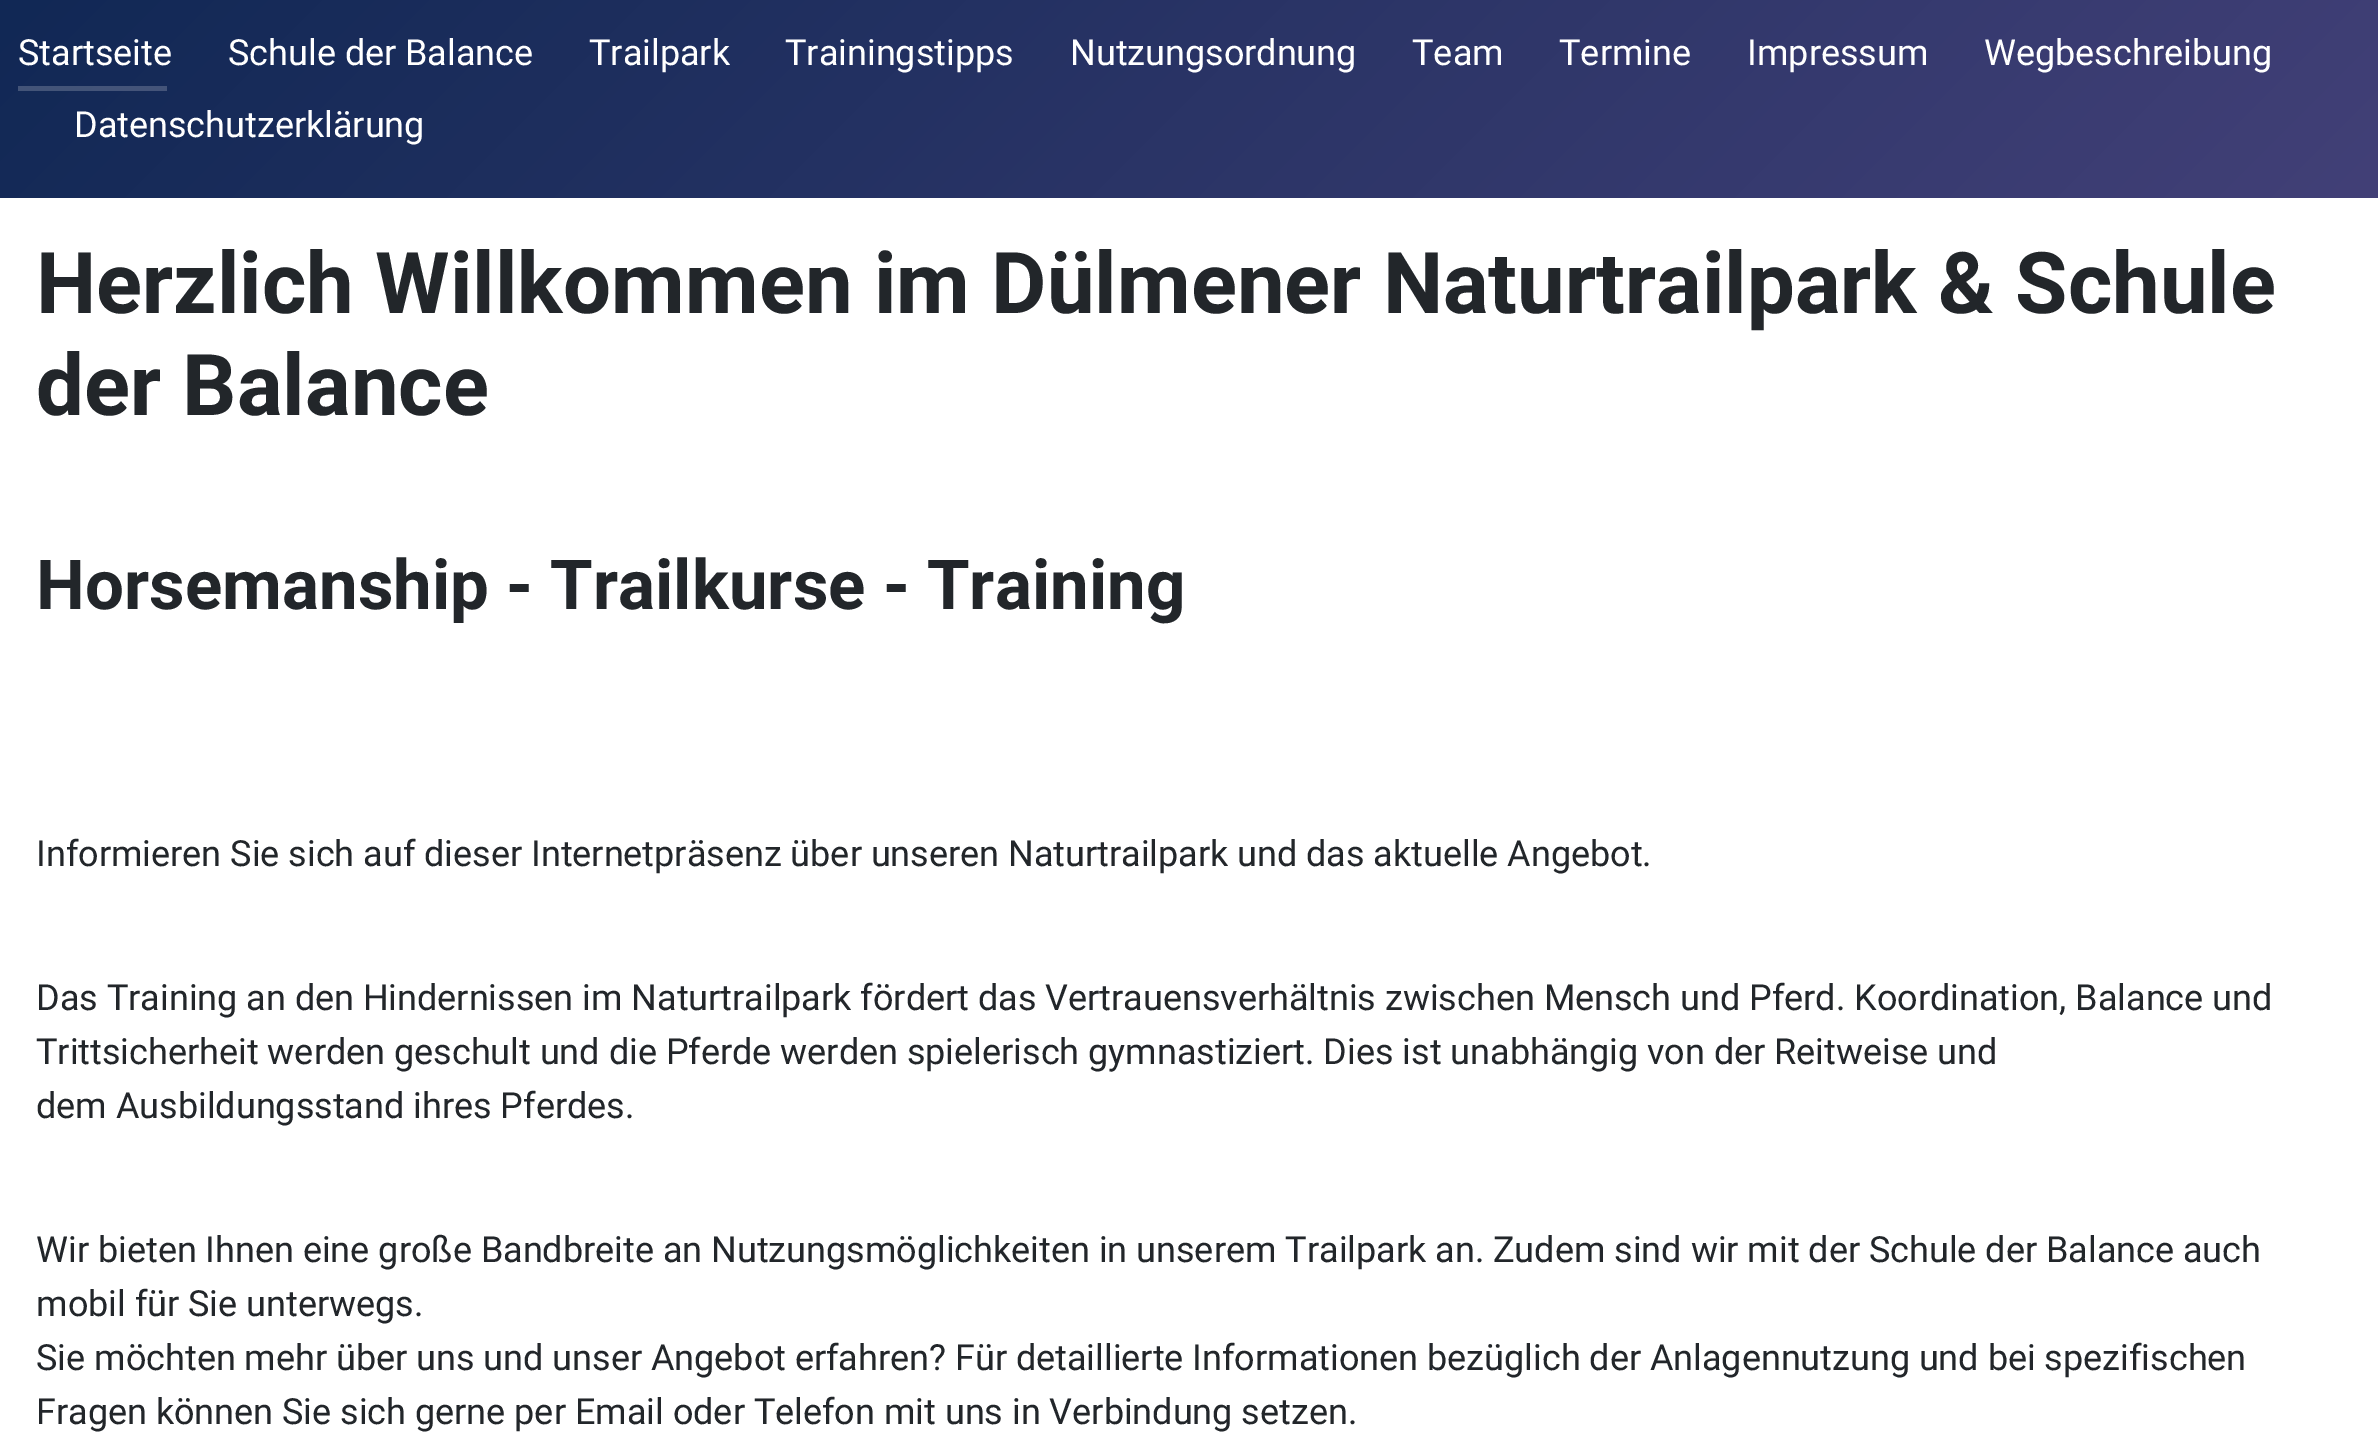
%!PS-Adobe-3.0
%%BoundingBox: 0 0 2378 1438
%%LanguageLevel: 3
%%Pages: 1
%%EndComments
%%BeginProlog
/m { moveto } bind def
/l { lineto } bind def
/h { closepath } bind def
/q { gsave } bind def
/Q { grestore } bind def
/fn { [ exch dup neg 0 0 3 -1 roll 0 0 ] selectfont } def
/tx { moveto show } def
/bx { rectfill } def
%%EndProlog
%%BeginSetup
<< /PageSize [2378 1438] >> setpagedevice
%%EndSetup
%%Page: 1 1
0 1438 translate 1 -1 scale
4 setmiterlimit
1 setgray
0 0 2378 1438 bx
q 0 0 m 2378 0 l 2378 198 l 0 198 l h clip newpath
<< /ShadingType 2 /ColorSpace /DeviceRGB /Coords [545 -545 1833 743] /Extend [true true] /Function << /FunctionType 2 /Domain [0 1] /C0 [0.067 0.157 0.333] /C1 [0.259 0.251 0.467] /N 1 >> >> shfill Q
q 18 86 m 167 86 l 167 91 l 18 91 l h clip newpath
<< /ShadingType 2 /ColorSpace /DeviceRGB /Coords [545 -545 1833 743] /Extend [true true] /Function << /FunctionType 2 /Domain [0 1] /C0 [0.255 0.325 0.467] /C1 [0.408 0.4 0.573] /N 1 >> >> shfill Q
/Roboto-Regular 36 fn
(Startseite) 18 65 tx
(Schule der Balance) 228 65 tx
(Trailpark) 589 65 tx
(Trainingstipps) 785 65 tx
(Nutzungsordnung) 1070 65 tx
(Team) 1412 65 tx
(Termine) 1559 65 tx
(Impressum) 1747 65 tx
(Wegbeschreibung) 1984 65 tx
(Datenschutzerklärung) 74 137 tx
/Roboto-Bold 85.2 fn
0.133 0.149 0.165 setrgbcolor
(Herzlich Willkommen im Dülmener Naturtrailpark & Schule) 36 313 tx
(der Balance) 36 415 tx
/Roboto-Bold 69.1 fn
(Horsemanship - Trailkurse - Training) 36 609 tx
/Roboto-Regular 36 fn
(Informieren Sie sich auf dieser Internetpräsenz über unseren Naturtrailpark und das aktuelle Angebot.) 36 866 tx
(Das Training an den Hindernissen im Naturtrailpark fördert das Vertrauensverhältnis zwischen Mensch und Pferd. Koordination, Balance und) 36 1010 tx
(Trittsicherheit werden geschult und die Pferde werden spielerisch gymnastiziert. Dies ist unabhängig von der Reitweise und) 36 1064 tx
(dem Ausbildungsstand ihres Pferdes.) 36 1118 tx
(Wir bieten Ihnen eine große Bandbreite an Nutzungsmöglichkeiten in unserem Trailpark an. Zudem sind wir mit der Schule der Balance auch) 36 1262 tx
(mobil für Sie unterwegs.) 36 1316 tx
(Sie möchten mehr über uns und unser Angebot erfahren? Für detaillierte Informationen bezüglich der Anlagennutzung und bei spezifischen) 36 1370 tx
(Fragen können Sie sich gerne per Email oder Telefon mit uns in Verbindung setzen.) 36 1424 tx
showpage
%%EOF
